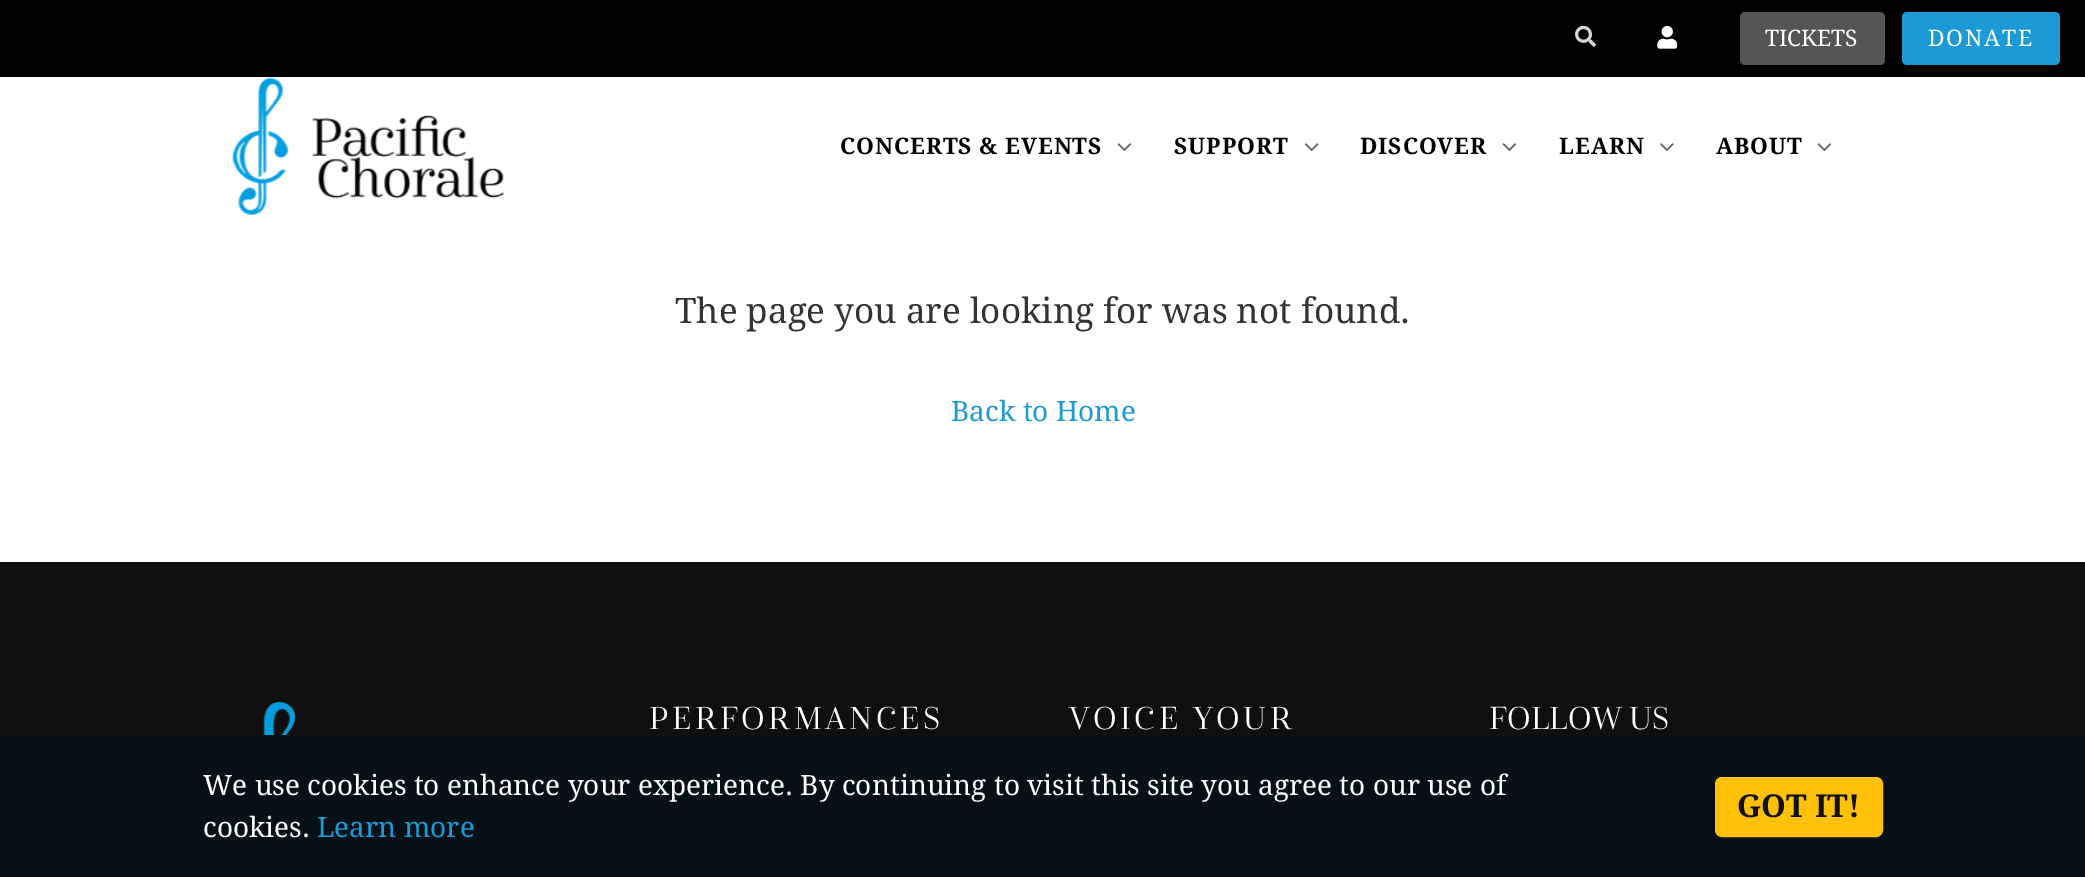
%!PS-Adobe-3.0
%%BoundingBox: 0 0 2085 877
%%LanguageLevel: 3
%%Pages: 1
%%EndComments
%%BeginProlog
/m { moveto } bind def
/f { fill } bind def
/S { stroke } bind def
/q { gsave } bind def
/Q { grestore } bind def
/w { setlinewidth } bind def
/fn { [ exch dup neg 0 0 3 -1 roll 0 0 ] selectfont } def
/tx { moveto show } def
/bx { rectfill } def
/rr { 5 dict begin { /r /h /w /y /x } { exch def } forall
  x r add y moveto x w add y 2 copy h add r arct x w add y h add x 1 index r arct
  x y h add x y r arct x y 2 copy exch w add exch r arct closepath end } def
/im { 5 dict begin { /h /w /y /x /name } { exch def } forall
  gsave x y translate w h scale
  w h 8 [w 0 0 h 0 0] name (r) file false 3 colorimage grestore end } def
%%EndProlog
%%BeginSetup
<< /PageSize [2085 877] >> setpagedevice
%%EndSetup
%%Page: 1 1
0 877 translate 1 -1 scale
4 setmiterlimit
1 setgray
0 0 2085 877 bx
0 setgray
0 0 2085 77 bx
(image0.raw) 1575 25 21 22 im
(image1.raw) 1657 25 21 24 im
0.333 setgray
1740 12 145 53 5 rr f
/DroidSerif-Regular 22.75 fn
1 setgray
(TICKETS) 1765 46 tx
0.11 0.604 0.839 setrgbcolor
1902 12 158 53 5 rr f
1 setgray
1928 46 m 1.75 0 (DONATE) ashow
(image2.raw) 232 78 273 137 im
/DroidSerif-Bold 22.75 fn
0 setgray
840 154 m 0.9 0 (CONCERTS & EVENTS) ashow
(image3.raw) 1117 143 15 9 im
1174 154 m 0.9 0 (SUPPORT) ashow
(image4.raw) 1304 143 15 9 im
1360 154 m 0.9 0 (DISCOVER) ashow
(image3.raw) 1502 143 15 9 im
1559 154 m 0.9 0 (LEARN) ashow
(image5.raw) 1660 143 14 9 im
1716 154 m 0.9 0 (ABOUT) ashow
(image3.raw) 1817 143 15 9 im
/DroidSerif-Regular 35 fn
0.2 setgray
(The page you are looking for was not found.) 675 323 tx
/DroidSerif-Regular 28 fn
0.11 0.604 0.839 setrgbcolor
(Back to Home) 951 421 tx
0.059 setgray
0 562 2085 173 bx
(image6.raw) 263 701 33 34 im
/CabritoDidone-SemiBold 31.5 fn
1 setgray
649 729 m 3.5 0 (PERFORMANCES) ashow
1069 729 m 3.5 0 (VOICE YOUR) ashow
(FOLLOW US) 1489 729 tx
0.024 0.067 0.09 setrgbcolor
0 735 2085 142 bx
/DroidSerif-Regular 28 fn
1 setgray
(We use cookies to enhance your experience. By continuing to visit this site you agree to our use of) 203 795 tx
(cookies.) 203 837 tx
0.11 0.604 0.839 setrgbcolor
(Learn more) 317 837 tx
1 0.757 0.027 setrgbcolor
1716 778 166 58 6 rr q f Q
2 w
S
/DroidSerif-Bold 31.5 fn
0.067 setgray
(GOT IT!) 1737 817 tx
showpage
%%EOF
